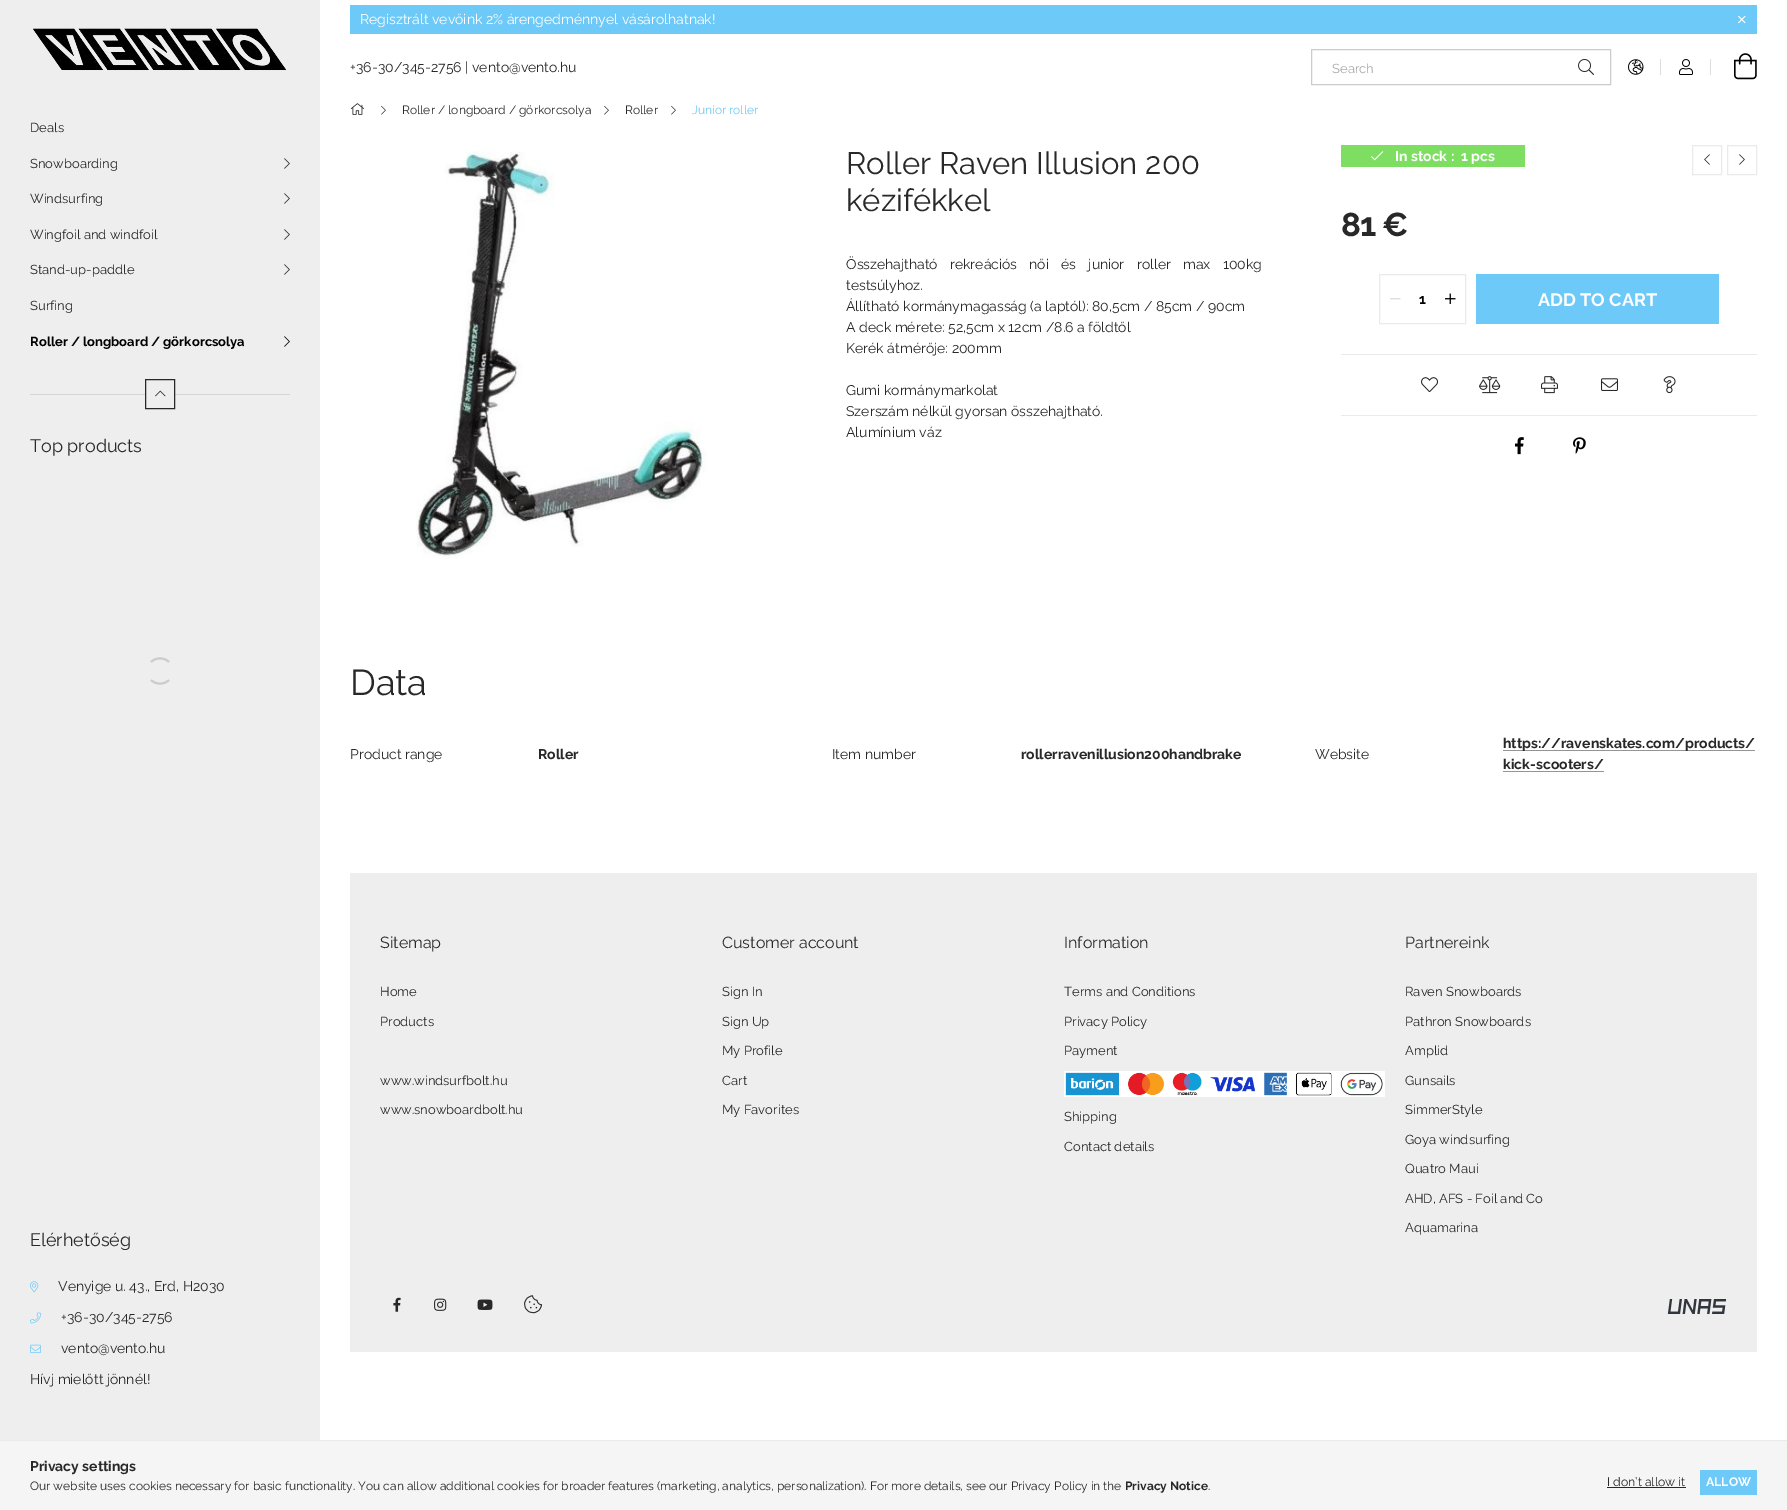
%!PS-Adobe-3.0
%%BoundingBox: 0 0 1787 1510
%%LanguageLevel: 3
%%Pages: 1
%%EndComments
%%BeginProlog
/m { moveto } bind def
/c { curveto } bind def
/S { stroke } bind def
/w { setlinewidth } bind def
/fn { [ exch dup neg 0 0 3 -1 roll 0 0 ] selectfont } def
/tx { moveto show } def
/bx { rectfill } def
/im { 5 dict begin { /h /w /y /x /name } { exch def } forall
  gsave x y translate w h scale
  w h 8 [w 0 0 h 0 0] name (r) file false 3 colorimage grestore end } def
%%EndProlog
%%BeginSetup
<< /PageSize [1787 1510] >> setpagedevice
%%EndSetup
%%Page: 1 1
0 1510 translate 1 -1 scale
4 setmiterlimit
1 setgray
0 0 1787 1510 bx
0.933 setgray
0 0 320 1440 bx
(image0.raw) 33 28 254 43 im
/Raleway-Regular 13 fn
0.157 setgray
(Deals) 30 132 tx
(Snowboarding) 30 168 tx
(image1.raw) 284 158 6 11 im
(Windsurfing) 30 203 tx
(image1.raw) 284 193 6 11 im
(Wingfoil and windfoil) 30 239 tx
(image1.raw) 284 229 6 11 im
(Stand-up-paddle) 30 274 tx
(image1.raw) 284 264 6 11 im
(Surfing) 30 310 tx
/Raleway-Bold 13 fn
0 setgray
(Roller / longboard / görkorcsolya) 30 346 tx
(image2.raw) 284 336 6 11 im
0.835 setgray
30 394 260 1 bx
0.933 setgray
146 394 28 1 bx
0.157 setgray
145.5 379.5 29 29 rectstroke
(image3.raw) 155 390 11 7 im
/Raleway-Regular 18 fn
(Top products) 30 452 tx
0.8 setgray
2 w
151 662 m 156 657 164 657 169 662 c 169 680 m 164 685 156 685 151 680 c S
0.157 setgray
(Elérhetőség) 30 1246 tx
(image4.raw) 30 1281 9 12 im
/Raleway-Regular 14 fn
(Venyige u. 43., Erd, H2030) 58 1291 tx
(image5.raw) 30 1312 11 12 im
(+36-30/345-2756) 61 1322 tx
(image6.raw) 30 1344 11 9 im
(vento@vento.hu) 61 1353 tx
(Hívj mielőtt jönnél!) 30 1384 tx
0.427 0.788 0.969 setrgbcolor
350 5 1407 29 bx
1 setgray
(Regisztrált vevőink 2% árengedménnyel vásárolhatnak!) 360 24 tx
(image7.raw) 1738 15 8 9 im
0.157 setgray
(+36-30/345-2756 | vento@vento.hu) 350 72 tx
0.8 setgray
1 w
1311.5 49.5 299 35 rectstroke
/Raleway-Regular 13 fn
0.667 setgray
(Search) 1332 73 tx
(image8.raw) 1578 59 16 16 im
(image9.raw) 1628 59 16 16 im
0.867 setgray
1660 59 1 16 bx
(image10.raw) 1679 59 14 16 im
1710 59 1 16 bx
(image11.raw) 1734 53 23 27 im
(image12.raw) 350 103 14 12 im
(image13.raw) 381 105 5 10 im
/Raleway-Regular 12 fn
0.157 setgray
(Roller / longboard / görkorcsolya) 402 114 tx
(image13.raw) 604 105 5 10 im
(Roller) 625 114 tx
(image13.raw) 671 105 5 10 im
0.427 0.788 0.969 setrgbcolor
(Junior roller) 692 114 tx
(image14.raw) 416 150 291 409 im
/Raleway-Regular 31 fn
0.157 setgray
(Roller Raven Illusion 200) 846 174 tx
(kézifékkel) 846 211 tx
/Raleway-Regular 14 fn
846 269 m 8.75 0 32 (Összehajtható rekreációs női és junior roller max 100kg) widthshow
(testsúlyhoz.) 846 290 tx
(Állítható kormánymagasság \(a laptól\): 80,5cm / 85cm / 90cm) 846 311 tx
(A deck mérete: 52,5cm x 12cm /8.6 a földtől) 846 332 tx
(Kerék átmérője: 200mm) 846 353 tx
(Gumi kormánymarkolat) 846 395 tx
(Szerszám nélkül gyorsan összehajtható.) 846 416 tx
(Alumínium váz) 846 437 tx
0.49 0.871 0.384 setrgbcolor
1341 145 184 22 bx
(image15.raw) 1371 151 13 10 im
/Raleway-Bold 14 fn
1 setgray
(In stock :) 1395 161 tx
(1 pcs) 1461 161 tx
0.918 setgray
1692.5 145.5 29 29 rectstroke
(image16.raw) 1704 154 6 11 im
1727.5 145.5 29 29 rectstroke
(image17.raw) 1739 154 6 11 im
/Raleway-Bold 33 fn
0.157 setgray
1341 236 m -1 0 (81 €) ashow
0.918 setgray
1379.5 274.5 86 49 rectstroke
(image18.raw) 1390 298 11 2 im
/Raleway-Bold 14 fn
0 setgray
(1) 1419 304 tx
(image19.raw) 1445 293 11 11 im
0.427 0.788 0.969 setrgbcolor
1476 274 243 50 bx
/Raleway-Bold 18 fn
1 setgray
(ADD TO CART) 1538 306 tx
0.918 setgray
1341 354 416 1 bx
(image20.raw) 1421 377 17 15 im
(image21.raw) 1479 376 22 18 im
(image22.raw) 1541 376 17 18 im
(image23.raw) 1601 378 17 13 im
(image24.raw) 1663 376 13 18 im
1341 415 416 1 bx
(image25.raw) 1515 437 9 18 im
(image26.raw) 1573 437 13 17 im
/Raleway-Regular 36 fn
0.157 setgray
(Data) 350 695 tx
/Raleway-Regular 14 fn
(Product range) 350 759 tx
/Raleway-Bold 14 fn
(Roller) 538 759 tx
/Raleway-Regular 14 fn
(Item number) 832 759 tx
/Raleway-Bold 14 fn
(rollerravenillusion200handbrake) 1021 759 tx
/Raleway-Regular 14 fn
(Website) 1315 759 tx
0.58 setgray
1503 750 252 1 bx
/Raleway-Bold 14 fn
0.157 setgray
(https://ravenskates.com/products/) 1503 748 tx
(kick-scooters/) 1503 769 tx
0.58 setgray
1503 771 101 1 bx
0.933 setgray
350 873 1407 479 bx
/Raleway-Regular 16 fn
0.157 setgray
(Sitemap) 380 948 tx
/Raleway-Regular 13 fn
(Home) 380 996 tx
(Products) 380 1026 tx
(www.windsurfbolt.hu) 380 1085 tx
(www.snowboardbolt.hu) 380 1114 tx
/Raleway-Regular 16 fn
(Customer account) 722 948 tx
/Raleway-Regular 13 fn
(Sign In) 722 996 tx
(Sign Up) 722 1026 tx
(My Profile) 722 1055 tx
(Cart) 722 1085 tx
(My Favorites) 722 1114 tx
/Raleway-Regular 16 fn
(Information) 1064 948 tx
/Raleway-Regular 13 fn
(Terms and Conditions) 1064 996 tx
(Privacy Policy) 1064 1026 tx
(Payment) 1064 1055 tx
(image27.raw) 1064 1071 321 26 im
(Shipping) 1064 1121 tx
(Contact details) 1064 1151 tx
/Raleway-Regular 16 fn
(Partnereink) 1405 948 tx
/Raleway-Regular 13 fn
(Raven Snowboards) 1405 996 tx
(Pathron Snowboards) 1405 1026 tx
(Amplid) 1405 1055 tx
(Gunsails) 1405 1085 tx
(SimmerStyle) 1405 1114 tx
(Goya windsurfing) 1405 1144 tx
(Quatro Maui) 1405 1173 tx
(AHD, AFS - Foil and Co) 1405 1203 tx
(Aquamarina) 1405 1232 tx
(image28.raw) 393 1297 8 15 im
(image29.raw) 434 1298 13 13 im
(image30.raw) 477 1299 16 11 im
(image31.raw) 524 1295 18 19 im
(image32.raw) 1667 1299 60 15 im
0.961 setgray
0 1441 1787 69 bx
0.918 setgray
0 1440 1787 1 bx
/Raleway-Bold 14 fn
0.157 setgray
(Privacy settings) 30 1471 tx
/Raleway-Regular 12 fn
(Our website uses cookies necessary for basic functionality. You can allow additional cookies for broader features \(marketing, analytics, personalization\). For more details, see our Privacy Policy in the) 30 1490 tx
/Raleway-Bold 12 fn
(Privacy Notice) 1125 1490 tx
/Raleway-Regular 12 fn
(.) 1208 1490 tx
/Raleway-Regular 12.25 fn
(I don’t allow it) 1607 1486 tx
1607 1487 79 1 bx
0.427 0.788 0.969 setrgbcolor
1700 1470 57 25 bx
/Raleway-Bold 12.25 fn
1 setgray
(ALLOW) 1706 1486 tx
showpage
%%EOF
